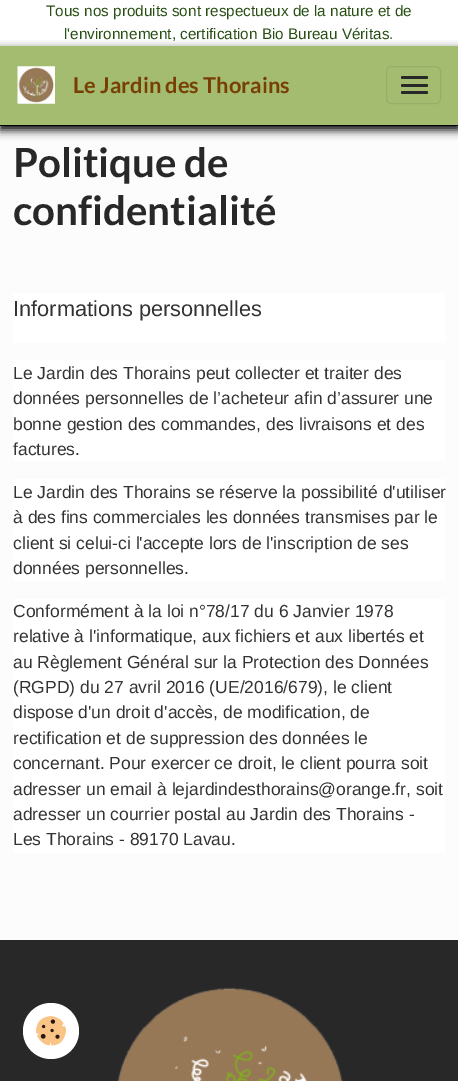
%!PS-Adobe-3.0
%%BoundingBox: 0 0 458 1081
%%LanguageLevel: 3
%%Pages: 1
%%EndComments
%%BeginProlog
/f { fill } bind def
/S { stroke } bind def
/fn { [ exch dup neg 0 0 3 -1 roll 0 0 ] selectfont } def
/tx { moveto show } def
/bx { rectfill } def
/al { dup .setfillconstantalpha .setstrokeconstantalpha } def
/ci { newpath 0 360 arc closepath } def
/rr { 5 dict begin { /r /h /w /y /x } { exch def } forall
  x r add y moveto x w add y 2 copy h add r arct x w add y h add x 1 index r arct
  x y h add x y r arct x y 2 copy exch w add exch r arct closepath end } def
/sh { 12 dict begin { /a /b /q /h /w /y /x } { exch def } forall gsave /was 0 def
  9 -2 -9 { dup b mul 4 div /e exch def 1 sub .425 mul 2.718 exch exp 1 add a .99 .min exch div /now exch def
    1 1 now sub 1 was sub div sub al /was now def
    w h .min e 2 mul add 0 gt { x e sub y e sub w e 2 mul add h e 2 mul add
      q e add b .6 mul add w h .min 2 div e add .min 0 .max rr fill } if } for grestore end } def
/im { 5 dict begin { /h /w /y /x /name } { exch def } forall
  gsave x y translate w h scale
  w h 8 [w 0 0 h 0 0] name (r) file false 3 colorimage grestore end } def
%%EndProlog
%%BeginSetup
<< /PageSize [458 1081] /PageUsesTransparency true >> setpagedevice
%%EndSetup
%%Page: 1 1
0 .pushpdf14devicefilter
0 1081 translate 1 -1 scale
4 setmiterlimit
1 setgray
0 0 458 1081 bx
/LiberationSans-Regular 15.3 fn
0.153 0.306 0.075 setrgbcolor
(Tous nos produits sont respectueux de la nature et de) 46 16 tx
(l'environnement, certification Bio Bureau Véritas.) 64 39 tx
0.988 setgray
0 126 458 814 bx
0 setgray
0 50 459 80 0 4.5 1 sh
0.639 0.737 0.439 setrgbcolor
0 46 458 79 bx
0 setgray
0 125 458 1 bx
(image0.raw) 17 66 38 38 im
/Lato-Bold 21.9 fn
0.471 0.247 0.016 setrgbcolor
(Le Jardin des Thorains) 73 93 tx
0.592 0.678 0.412 setrgbcolor
386.5 66.5 54 37 4.5 rr S
0.161 0.157 0.157 setrgbcolor
401 76 27 3 1.5 rr f
401 84 27 3 1.5 rr f
401 91 27 3 1.5 rr f
/Lato-Bold 40.25 fn
(Politique de) 13 177 tx
(confidentialité) 13 225 tx
1 setgray
13 293 433 50 bx
/LiberationSans-Regular 21.75 fn
0.2 setgray
(Informations personnelles) 13 316 tx
1 setgray
13 360 433 101 bx
/LiberationSans-Regular 17.5 fn
0.2 setgray
(Le Jardin des Thorains peut collecter et traiter des) 13 379 tx
(données personnelles de l’acheteur afin d’assurer une) 13 404 tx
(bonne gestion des commandes, des livraisons et des) 13 430 tx
(factures.) 13 455 tx
1 setgray
13 479 433 102 bx
0.2 setgray
(Le Jardin des Thorains se réserve la possibilité d'utiliser) 13 498 tx
(à des fins commerciales les données transmises par le) 13 523 tx
(client si celui-ci l'accepte lors de l'inscription de ses) 13 549 tx
(données personnelles.) 13 574 tx
1 setgray
13 599 433 254 bx
0.2 setgray
(Conformément à la loi n°78/17 du 6 Janvier 1978) 13 617 tx
(relative à l'informatique, aux fichiers et aux libertés et) 13 642 tx
(au Règlement Général sur la Protection des Données) 13 668 tx
(\(RGPD\) du 27 avril 2016 \(UE/2016/679\), le client) 13 693 tx
(dispose d'un droit d'accès, de modification, de) 13 718 tx
(rectification et de suppression des données le) 13 744 tx
(concernant. Pour exercer ce droit, le client pourra soit) 13 769 tx
(adresser un email à lejardindesthorains@orange.fr, soit) 13 795 tx
(adresser un courrier postal au Jardin des Thorains -) 13 820 tx
(Les Thorains - 89170 Lavau.) 13 845 tx
0.161 0.157 0.157 setrgbcolor
0 940 458 141 bx
(image1.raw) 117 987 226 94 im
1 setgray
51 1031 28 ci f
(image2.raw) 36 1016 30 30 im
.poppdf14devicefilter showpage
%%EOF
